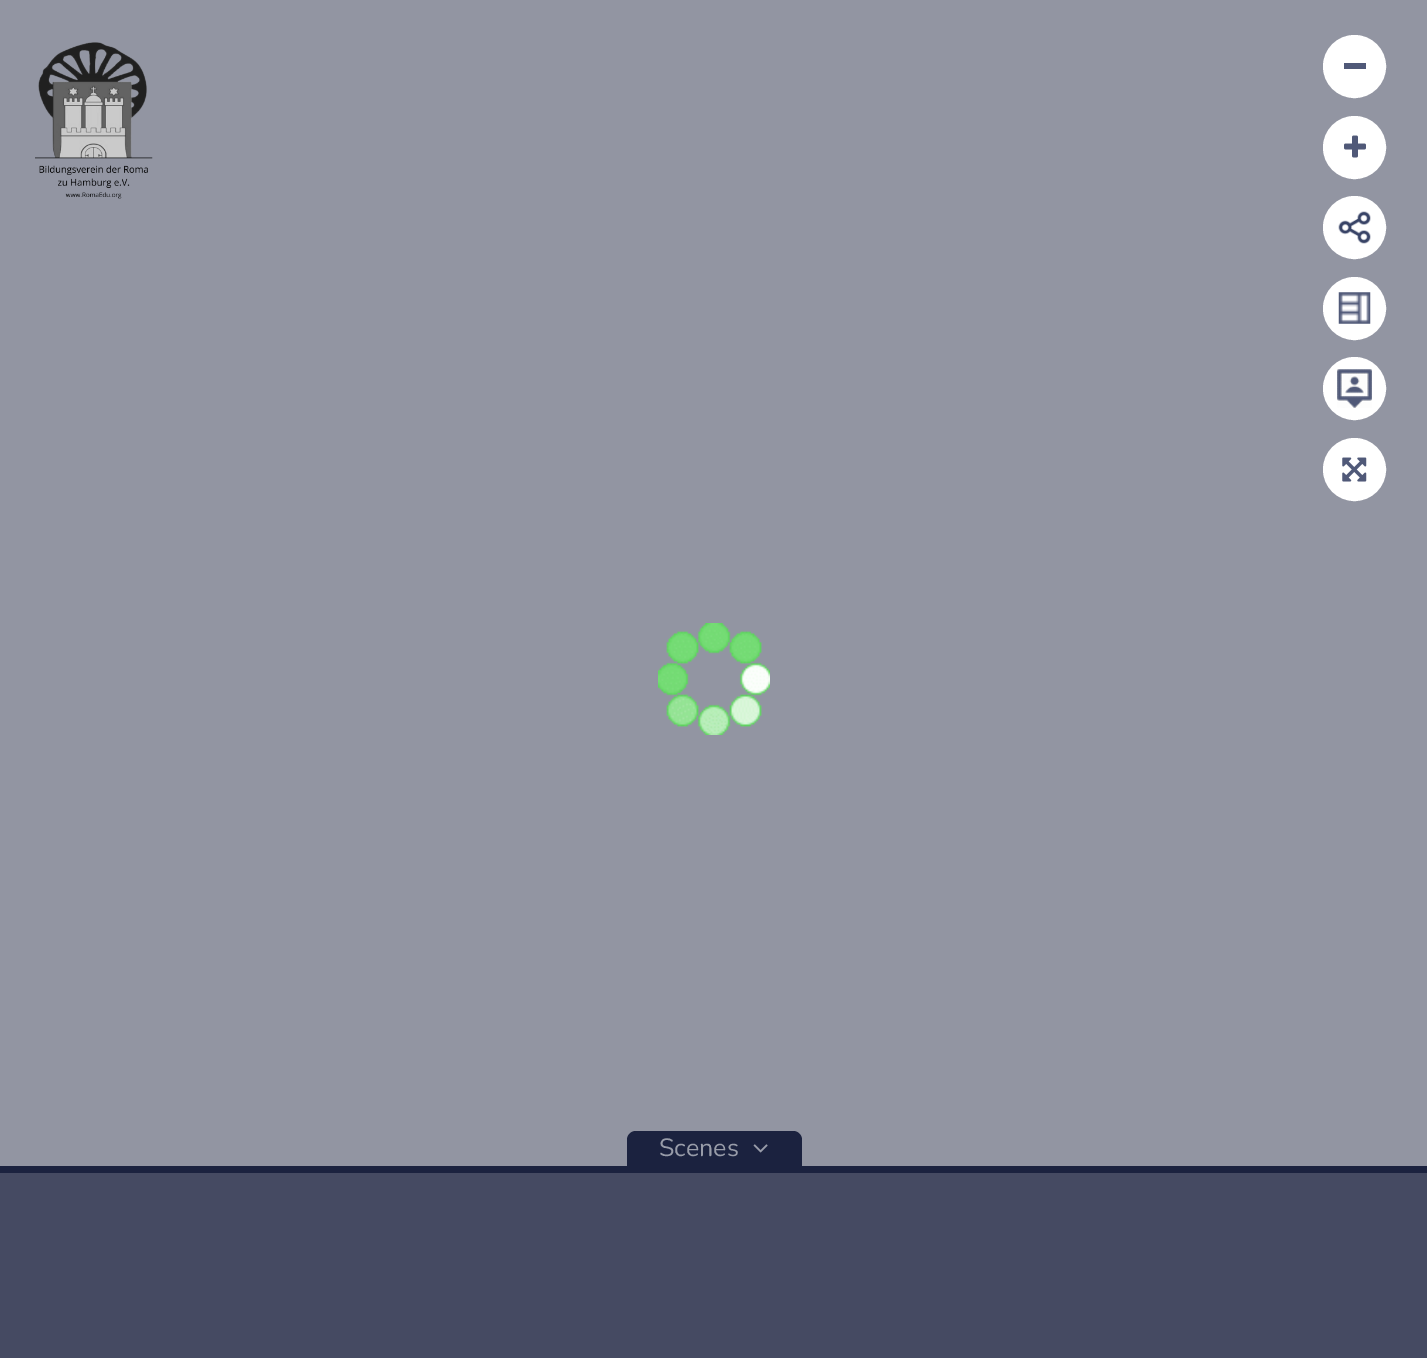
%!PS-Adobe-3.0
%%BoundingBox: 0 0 1427 1358
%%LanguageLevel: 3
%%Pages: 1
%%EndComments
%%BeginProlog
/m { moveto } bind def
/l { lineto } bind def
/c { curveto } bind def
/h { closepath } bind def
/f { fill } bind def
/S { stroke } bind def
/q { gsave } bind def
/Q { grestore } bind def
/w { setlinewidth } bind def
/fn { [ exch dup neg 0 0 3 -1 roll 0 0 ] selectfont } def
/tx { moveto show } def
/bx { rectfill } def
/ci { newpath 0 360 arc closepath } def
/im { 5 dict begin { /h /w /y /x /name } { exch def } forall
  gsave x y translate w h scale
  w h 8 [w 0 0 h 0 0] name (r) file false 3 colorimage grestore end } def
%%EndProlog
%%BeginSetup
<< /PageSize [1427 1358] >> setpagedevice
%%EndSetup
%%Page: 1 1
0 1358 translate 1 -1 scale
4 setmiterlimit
0.573 0.584 0.635 setrgbcolor
0 0 1427 1358 bx
(image0.raw) 35 42 118 157 im
1 setgray
1354.5 66.5 29.5 ci q f Q
4 w
S
0.314 0.349 0.471 setrgbcolor
1344 63 22 6 bx
1 setgray
1354.5 147.5 29.5 ci q f Q
S
(image1.raw) 1344 135 22 23 im
1354.5 227.5 29.5 ci q f Q
S
(image2.raw) 1338 211 33 33 im
1354.5 308.5 29.5 ci q f Q
S
(image3.raw) 1338 292 33 32 im
1354.5 388.5 29.5 ci q f Q
S
(image4.raw) 1337 369 35 39 im
1354.5 469.5 29.5 ci q f Q
S
(image5.raw) 1342 457 25 25 im
(image6.raw) 658 623 112 112 im
0.271 0.29 0.384 setrgbcolor
0 1173 1427 185 bx
0.106 0.133 0.247 setrgbcolor
0 1166 1427 7 bx
636 1131 m 793 1131 l 798 1131 802 1135 802 1140 c 802 1166 l 627 1166 l 627 1140 l 627 1135 631 1131 636 1131 c h f
/Nunito-ExtraLight 25 fn
0.596 0.612 0.663 setrgbcolor
(Scenes) 659 1156 tx
(image7.raw) 753 1144 15 9 im
showpage
%%EOF
